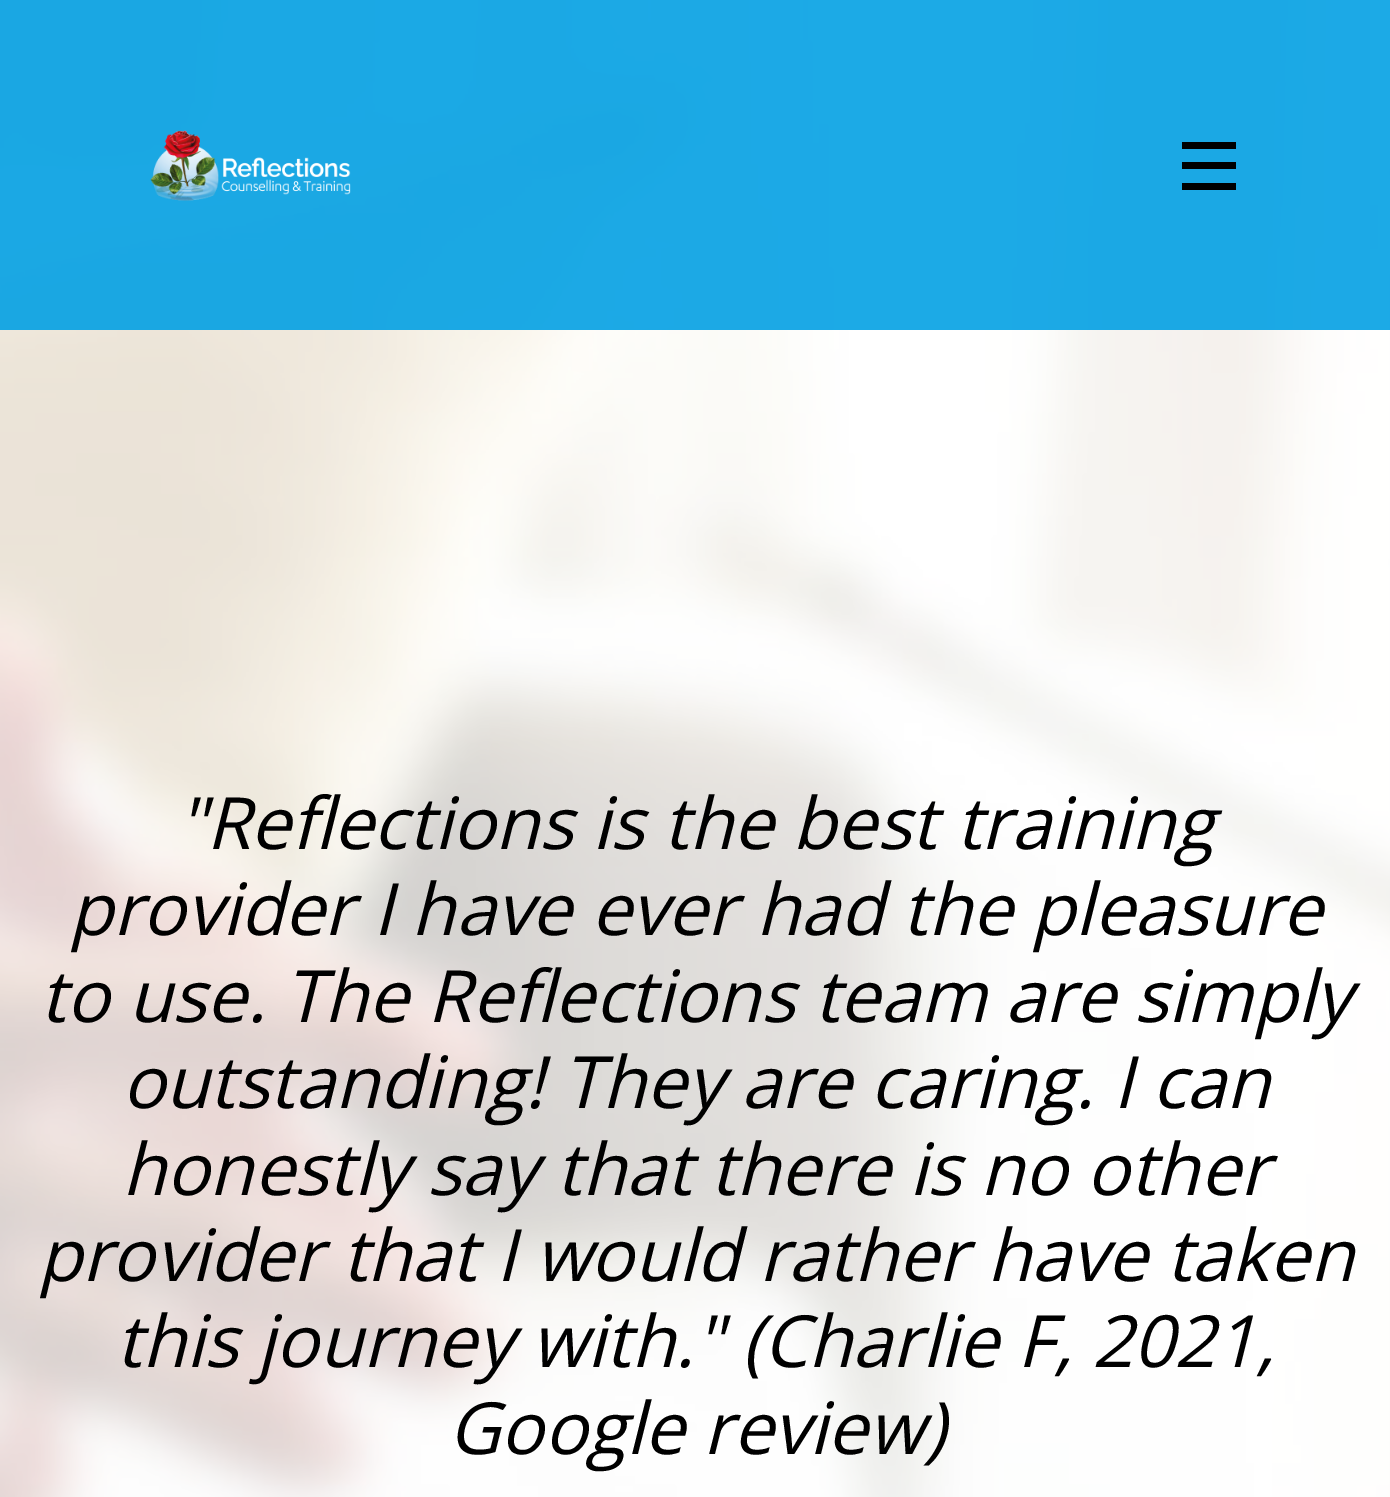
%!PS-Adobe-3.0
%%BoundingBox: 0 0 1390 1497
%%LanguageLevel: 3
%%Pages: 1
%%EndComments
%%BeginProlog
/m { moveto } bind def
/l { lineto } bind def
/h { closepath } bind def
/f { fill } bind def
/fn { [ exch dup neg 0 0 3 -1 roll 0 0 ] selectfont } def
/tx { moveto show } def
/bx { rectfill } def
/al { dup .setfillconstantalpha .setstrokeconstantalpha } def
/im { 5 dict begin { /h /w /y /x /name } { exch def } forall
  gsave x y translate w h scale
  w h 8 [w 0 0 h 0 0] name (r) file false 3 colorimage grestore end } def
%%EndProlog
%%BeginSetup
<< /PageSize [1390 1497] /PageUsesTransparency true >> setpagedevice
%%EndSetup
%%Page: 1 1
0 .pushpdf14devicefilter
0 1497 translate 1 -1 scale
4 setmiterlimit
1 setgray
0 0 1390 1497 bx
(image2.raw) 1389 0 1 1497 im
(image1.raw) 0 0 1390 1497 im
0.89 al
0 0.624 0.89 setrgbcolor
0 0 1390 330 bx
1 al
(image0.raw) 150 130 201 71 im
0 setgray
1182 142 m 1236 142 l 1236 149 l 1182 149 l h 1182 162 m 1236 162 l 1236 169 l 1182 169 l h 1182 183 m 1236 183 l 1236 190 l 1182 190 l h f
/OpenSans-Italic 72 fn
("Reflections is the best training) 177 849 tx
(provider I have ever had the pleasure) 69 935 tx
(to use. The Reflections team are simply) 40 1022 tx
(outstanding! They are caring. I can) 122 1108 tx
(honestly say that there is no other) 122 1195 tx
(provider that I would rather have taken) 38 1281 tx
(this journey with." \(Charlie F, 2021,) 116 1367 tx
(Google review\)) 448 1454 tx
.poppdf14devicefilter showpage
%%EOF
